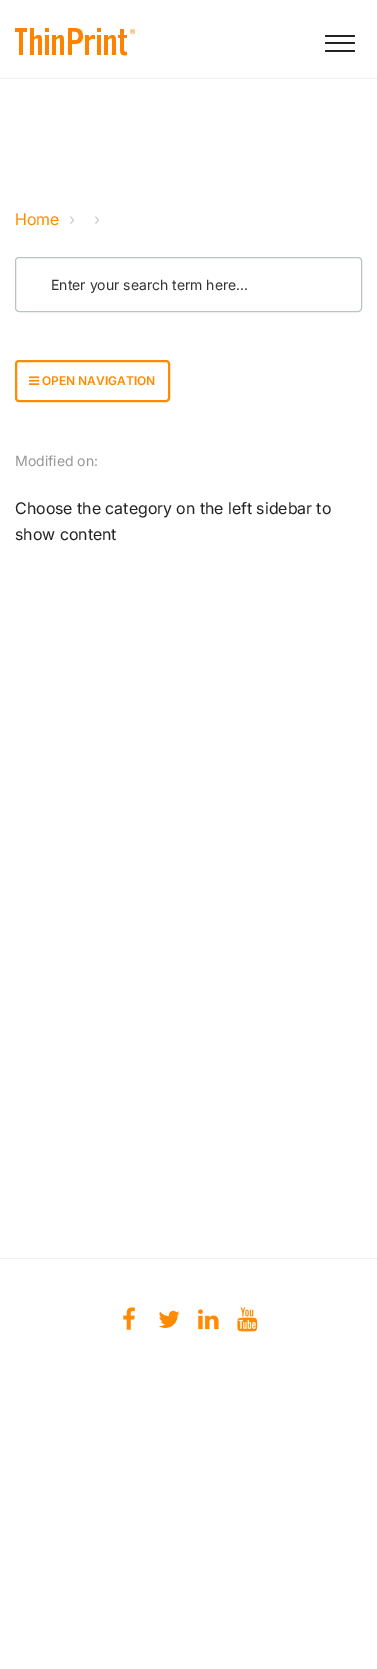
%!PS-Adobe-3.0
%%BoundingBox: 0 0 377 1669
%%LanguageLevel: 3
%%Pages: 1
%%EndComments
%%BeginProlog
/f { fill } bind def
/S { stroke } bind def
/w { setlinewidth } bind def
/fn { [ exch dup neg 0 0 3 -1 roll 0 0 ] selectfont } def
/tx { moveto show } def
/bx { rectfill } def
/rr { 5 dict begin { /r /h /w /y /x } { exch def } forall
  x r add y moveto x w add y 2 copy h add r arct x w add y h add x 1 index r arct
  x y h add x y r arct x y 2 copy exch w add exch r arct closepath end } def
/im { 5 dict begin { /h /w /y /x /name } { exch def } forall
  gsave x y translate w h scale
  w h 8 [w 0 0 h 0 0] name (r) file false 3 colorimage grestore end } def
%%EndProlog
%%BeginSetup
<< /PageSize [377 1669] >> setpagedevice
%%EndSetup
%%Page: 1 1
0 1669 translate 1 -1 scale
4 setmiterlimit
1 setgray
0 0 377 1669 bx
0.945 setgray
0 78 377 1 bx
(image0.raw) 15 28 120 28 im
0.133 setgray
325 42 30 2 1 rr f
325 35 30 2 1 rr f
325 50 30 2 1 rr f
/Inter-Regular 16 fn
1 0.545 0.008 setrgbcolor
(Home) 15 225 tx
0.8 setgray
(›) 69 225 tx
(›) 94 225 tx
0.741 0.761 0.773 setrgbcolor
15.5 257.5 346 54 3.5 rr S
/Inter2-Regular 14 fn
0.2 setgray
(Enter your search term here...) 51 290 tx
1 0.545 0.008 setrgbcolor
2 w
16 361 153 40 3 rr S
(image1.raw) 29 376 11 9 im
/Inter-SemiBold 12 fn
(OPEN NAVIGATION) 42 385 tx
/Inter2-Regular 14 fn
0.592 setgray
(Modified on:) 15 466 tx
/Inter-Regular 16 fn
0.133 setgray
(Choose the category on the left sidebar to) 15 514 tx
(show content) 15 540 tx
0.945 setgray
0 1258 377 1 bx
(image2.raw) 123 1307 12 23 im
(image3.raw) 158 1310 22 18 im
(image4.raw) 198 1309 21 21 im
(image5.raw) 237 1307 21 25 im
showpage
%%EOF
